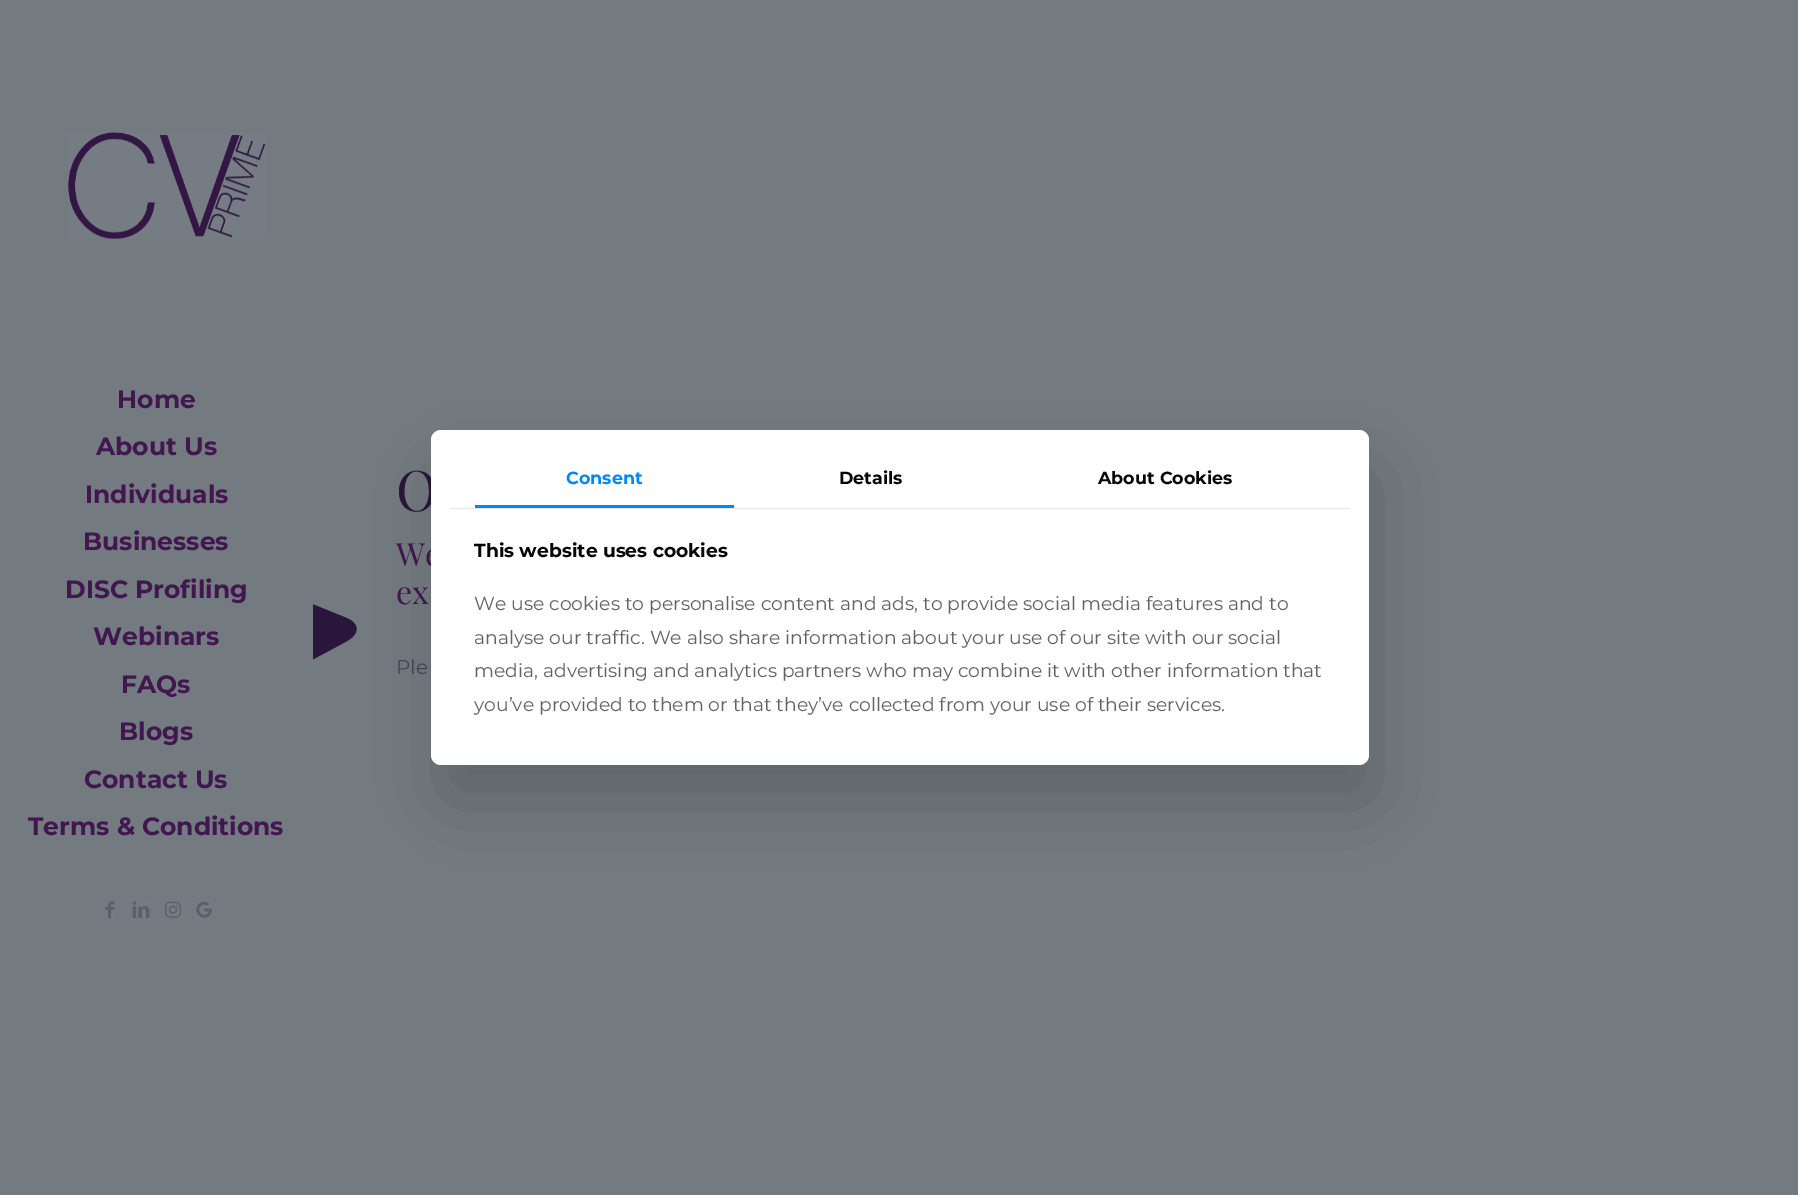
%!PS-Adobe-3.0
%%BoundingBox: 0 0 1798 1195
%%LanguageLevel: 3
%%Pages: 1
%%EndComments
%%BeginProlog
/f { fill } bind def
/fn { [ exch dup neg 0 0 3 -1 roll 0 0 ] selectfont } def
/tx { moveto show } def
/bx { rectfill } def
/al { dup .setfillconstantalpha .setstrokeconstantalpha } def
/rr { 5 dict begin { /r /h /w /y /x } { exch def } forall
  x r add y moveto x w add y 2 copy h add r arct x w add y h add x 1 index r arct
  x y h add x y r arct x y 2 copy exch w add exch r arct closepath end } def
/sh { 12 dict begin { /a /b /q /h /w /y /x } { exch def } forall gsave /was 0 def
  9 -2 -9 { dup b mul 4 div /e exch def 1 sub .425 mul 2.718 exch exp 1 add a .99 .min exch div /now exch def
    1 1 now sub 1 was sub div sub al /was now def
    w h .min e 2 mul add 0 gt { x e sub y e sub w e 2 mul add h e 2 mul add
      q e add b .6 mul add w h .min 2 div e add .min 0 .max rr fill } if } for grestore end } def
/im { 5 dict begin { /h /w /y /x /name } { exch def } forall
  gsave x y translate w h scale
  w h 8 [w 0 0 h 0 0] name (r) file false 3 colorimage grestore end } def
%%EndProlog
%%BeginSetup
<< /PageSize [1798 1195] /PageUsesTransparency true >> setpagedevice
%%EndSetup
%%Page: 1 1
0 .pushpdf14devicefilter
0 1195 translate 1 -1 scale
4 setmiterlimit
0.451 0.482 0.506 setrgbcolor
0 0 1798 1195 bx
(image0.raw) 68 132 198 107 im
/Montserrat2-Thin 25 fn
0.259 0.086 0.31 setrgbcolor
(Home) 117 408 tx
(About Us) 96 455 tx
(Individuals) 85 503 tx
(Businesses) 83 550 tx
(DISC Profiling) 65 598 tx
(Webinars) 93 645 tx
(FAQs) 121 693 tx
(Blogs) 119 740 tx
(Contact Us) 84 788 tx
(Terms & Conditions) 28 835 tx
(image1.raw) 105 901 10 18 im
(image2.raw) 132 901 18 17 im
(image3.raw) 165 901 17 17 im
(image4.raw) 196 901 16 17 im
(image5.raw) 313 604 44 56 im
/PlayfairDisplay-Regular 56 fn
0.161 0.086 0.227 setrgbcolor
(O) 396 511 tx
/PlayfairDisplay-Regular 32 fn
0.259 0.086 0.31 setrgbcolor
(We) 396 566 tx
(ex) 396 604 tx
/Montserrat-Thin 20 fn
0.263 0.286 0.345 setrgbcolor
(Ple) 396 674 tx
0 setgray
439 468 937 335 10 37.5 0.18 sh
1 setgray
431 430 938 335 10 rr f
0.902 0.902 0.906 setrgbcolor
450 508 900 1 bx
/Montserrat2-Thin 17.5 fn
0 0.537 0.969 setrgbcolor
(Consent) 566 484 tx
475 505 259 3 bx
0.027 0.027 0.039 setrgbcolor
(Details) 839 484 tx
(About Cookies) 1098 484 tx
/Montserrat2-Thin 18.75 fn
(This website uses cookies) 474 557 tx
/Montserrat-Thin 18.75 fn
0.384 setgray
(We use cookies to personalise content and ads, to provide social media features and to) 474 610 tx
(analyse our traffic. We also share information about your use of our site with our social) 474 644 tx
(media, advertising and analytics partners who may combine it with other information that) 474 677 tx
(you’ve provided to them or that they’ve collected from your use of their services.) 474 711 tx
.poppdf14devicefilter showpage
%%EOF
